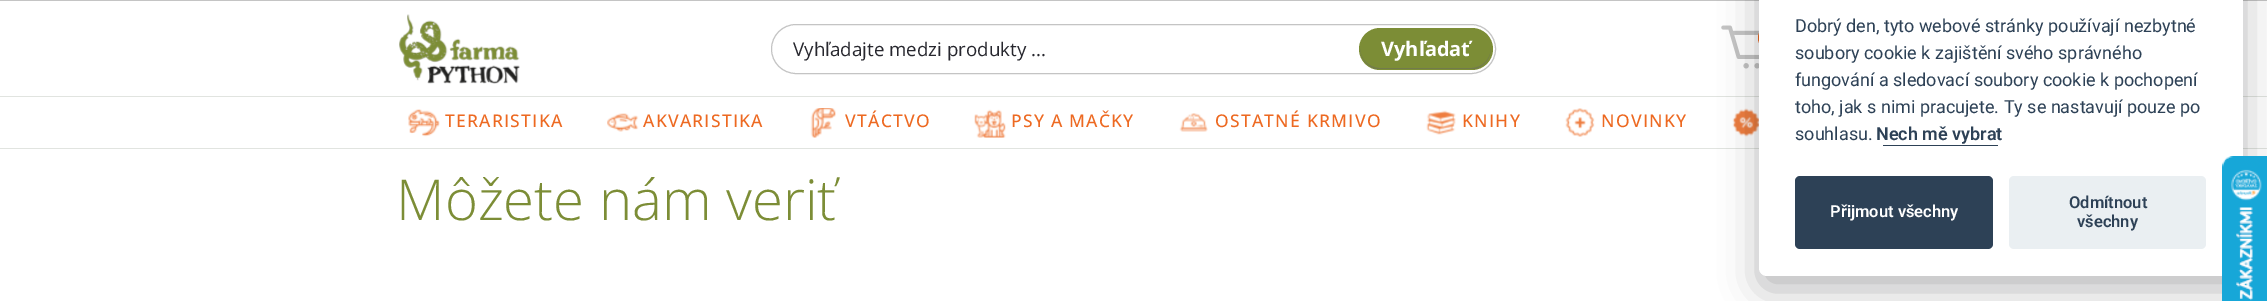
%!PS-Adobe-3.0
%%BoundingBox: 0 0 2267 301
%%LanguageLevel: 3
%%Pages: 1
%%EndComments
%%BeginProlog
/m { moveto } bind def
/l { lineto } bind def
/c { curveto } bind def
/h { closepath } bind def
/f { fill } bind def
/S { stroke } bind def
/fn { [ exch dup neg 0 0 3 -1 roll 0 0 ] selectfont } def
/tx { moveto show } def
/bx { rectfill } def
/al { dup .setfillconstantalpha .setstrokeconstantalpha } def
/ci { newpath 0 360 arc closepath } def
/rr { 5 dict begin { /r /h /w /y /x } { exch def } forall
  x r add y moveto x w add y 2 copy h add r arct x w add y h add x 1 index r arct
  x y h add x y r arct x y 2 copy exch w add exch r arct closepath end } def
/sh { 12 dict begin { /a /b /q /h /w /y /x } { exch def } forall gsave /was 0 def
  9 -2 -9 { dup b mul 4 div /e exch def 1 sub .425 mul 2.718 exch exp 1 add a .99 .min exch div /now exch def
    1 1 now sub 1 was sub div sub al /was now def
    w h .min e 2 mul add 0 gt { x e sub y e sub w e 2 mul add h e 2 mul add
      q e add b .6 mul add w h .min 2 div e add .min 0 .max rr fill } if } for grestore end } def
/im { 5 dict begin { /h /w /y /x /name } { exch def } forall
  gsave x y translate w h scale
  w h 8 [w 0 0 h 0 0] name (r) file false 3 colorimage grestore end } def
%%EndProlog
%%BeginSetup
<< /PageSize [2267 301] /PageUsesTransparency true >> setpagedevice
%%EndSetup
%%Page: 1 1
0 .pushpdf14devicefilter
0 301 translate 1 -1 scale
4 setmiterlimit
1 setgray
0 0 2267 301 bx
0.769 setgray
0 0 2267 1 bx
(image0.raw) 399 14 121 70 im
771.5 24.5 724 49 24.5 rr S
/OpenSans-Regular 18.75 fn
0.153 0.153 0.18 setrgbcolor
(Vyhľadajte medzi produkty ...) 793 56 tx
0.486 0.553 0.212 setrgbcolor
1359 28 134 42 21 rr f
0.447 0.482 0.294 setrgbcolor
1360 48 m 1360 58 1367 67 1376 69 c 1395 69 l 1475 69 l 1484 67 1491 58 1491 48 c 1491 59 1482 68 1471 68 c 1380 68 l 1369 68 1360 59 1360 48 c h f
/OpenSans-Bold 20 fn
1 setgray
(Vyhľadať) 1381 56 tx
(image1.raw) 1721 25 38 44 im
0.929 0.412 0.129 setrgbcolor
1771 38 13 ci f
0.882 0.894 0.878 setrgbcolor
0 96 2267 1 bx
0 148 2267 1 bx
(image2.raw) 408 109 32 28 im
/OpenSans-Medium 17.5 fn
0.929 0.412 0.129 setrgbcolor
445 127 m 1.25 0 (TERARISTIKA) ashow
(image3.raw) 607 113 32 19 im
643 127 m 1.25 0 (AKVARISTIKA) ashow
(image4.raw) 810 108 26 30 im
845 127 m 1.25 0 (VTÁCTVO) ashow
(image5.raw) 974 109 32 29 im
1011 127 m 1.25 0 (PSY A MAČKY) ashow
(image6.raw) 1179 113 29 19 im
1215 127 m 1.25 0 (OSTATNÉ KRMIVO) ashow
(image7.raw) 1426 110 30 25 im
1462 127 m 1.25 0 (KNIHY) ashow
(image8.raw) 1565 108 30 29 im
1601 127 m 1.25 0 (NOVINKY) ashow
(image9.raw) 1732 108 27 29 im
0.008 0.008 0.012 setrgbcolor
1759 -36 484 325 8 19 0.28 sh
1 setgray
1759 -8 484 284 8 rr f
/Roboto-Regular 18 fn
0.176 0.255 0.337 setrgbcolor
(Dobrý den, tyto webové stránky používají nezbytné) 1795 32 tx
(soubory cookie k zajištění svého správného) 1795 59 tx
(fungování a sledovací soubory cookie k pochopení) 1795 86 tx
(toho, jak s nimi pracujete. Ty se nastavují pouze po) 1795 113 tx
(souhlasu.) 1795 140 tx
/Roboto-SemiBold 18 fn
(Nech mě vybrat) 1876 140 tx
1883 145 115 1 bx
1795 176 198 73 5 rr f
/Roboto-SemiBold 16.5 fn
1 setgray
(Přijmout všechny) 1830 217 tx
0.918 0.937 0.949 setrgbcolor
2009 176 197 73 5 rr f
0.176 0.255 0.337 setrgbcolor
(Odmítnout) 2069 208 tx
(všechny) 2077 227 tx
/OpenSans-Light 56.25 fn
0.486 0.553 0.212 setrgbcolor
(Môžete nám veriť) 396 220 tx
(image10.raw) 2222 156 45 145 im
.poppdf14devicefilter showpage
%%EOF
